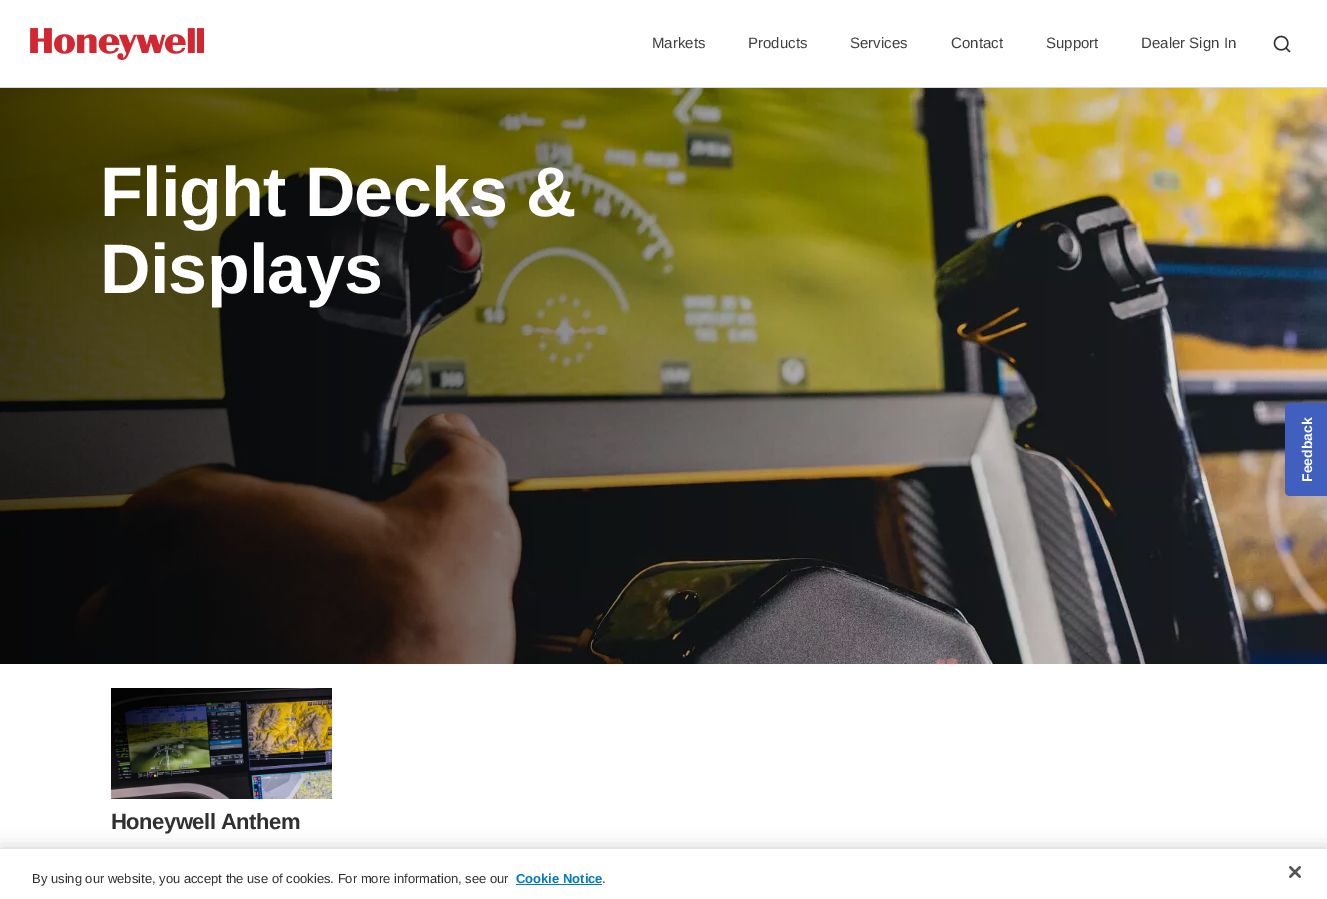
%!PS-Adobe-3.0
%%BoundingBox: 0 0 1327 899
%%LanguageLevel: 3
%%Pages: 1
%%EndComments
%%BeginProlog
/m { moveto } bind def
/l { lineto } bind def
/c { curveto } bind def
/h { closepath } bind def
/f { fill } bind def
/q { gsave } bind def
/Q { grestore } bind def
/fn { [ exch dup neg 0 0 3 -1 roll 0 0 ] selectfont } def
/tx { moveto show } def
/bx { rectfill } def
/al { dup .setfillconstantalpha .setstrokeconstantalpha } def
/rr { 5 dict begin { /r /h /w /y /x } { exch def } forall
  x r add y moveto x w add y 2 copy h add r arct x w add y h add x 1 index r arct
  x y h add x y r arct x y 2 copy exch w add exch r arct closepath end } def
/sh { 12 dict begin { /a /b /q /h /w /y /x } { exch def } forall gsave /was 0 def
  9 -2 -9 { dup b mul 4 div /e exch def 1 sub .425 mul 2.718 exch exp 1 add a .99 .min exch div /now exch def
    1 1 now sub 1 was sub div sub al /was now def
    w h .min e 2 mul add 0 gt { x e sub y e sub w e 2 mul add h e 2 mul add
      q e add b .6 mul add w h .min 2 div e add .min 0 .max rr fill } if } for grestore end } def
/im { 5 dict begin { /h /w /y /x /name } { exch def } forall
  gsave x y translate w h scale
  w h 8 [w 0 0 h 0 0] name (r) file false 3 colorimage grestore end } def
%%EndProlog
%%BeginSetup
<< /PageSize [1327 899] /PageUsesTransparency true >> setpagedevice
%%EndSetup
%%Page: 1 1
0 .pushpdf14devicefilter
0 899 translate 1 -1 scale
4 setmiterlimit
1 setgray
0 0 1327 899 bx
0.847 setgray
0 87 1327 1 bx
(image0.raw) 30 28 174 32 im
/LiberationSans-Regular 15 fn
0.251 setgray
(Markets) 652 48 tx
(Products) 748 48 tx
(Services) 850 48 tx
(Contact) 951 48 tx
(Support) 1046 48 tx
(Dealer Sign In) 1141 48 tx
(image1.raw) 1273 35 18 18 im
(image2.raw) 0 88 1327 576 im
/LiberationSans-Bold 70 fn
1 setgray
100 216 m -0.75 0 (Flight Decks &) ashow
100 293 m -0.75 0 (Displays) ashow
(image3.raw) 111 688 221 111 im
/LiberationSans-Bold 22 fn
0.188 setgray
111 829 m -0.5 0 (Honeywell Anthem) ashow
0.255 0.373 0.749 setrgbcolor
1285 491 m 1285 408 l 1285 405 1287 403 1290 403 c 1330 403 l 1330 496 l 1290 496 l 1287 496 1285 494 1285 491 c h f
/LiberationSans-Bold 14 fn
1 setgray
q 1312 482 translate -90 rotate 0 0 m (Feedback) show Q
0 setgray
0 849 1327 50 0 9 0.2 sh
1 setgray
0 849 1327 50 bx
/LiberationSans-Regular 13 fn
0.188 setgray
(By using our website, you accept the use of cookies. For more information, see our) 32 883 tx
/LiberationSans-Bold 13 fn
0 0.482 0.761 setrgbcolor
(Cookie Notice) 516 883 tx
516 884 86 1 bx
/LiberationSans-Regular 13 fn
0.188 setgray
(.) 602 883 tx
(image4.raw) 1289 866 12 12 im
.poppdf14devicefilter showpage
%%EOF
